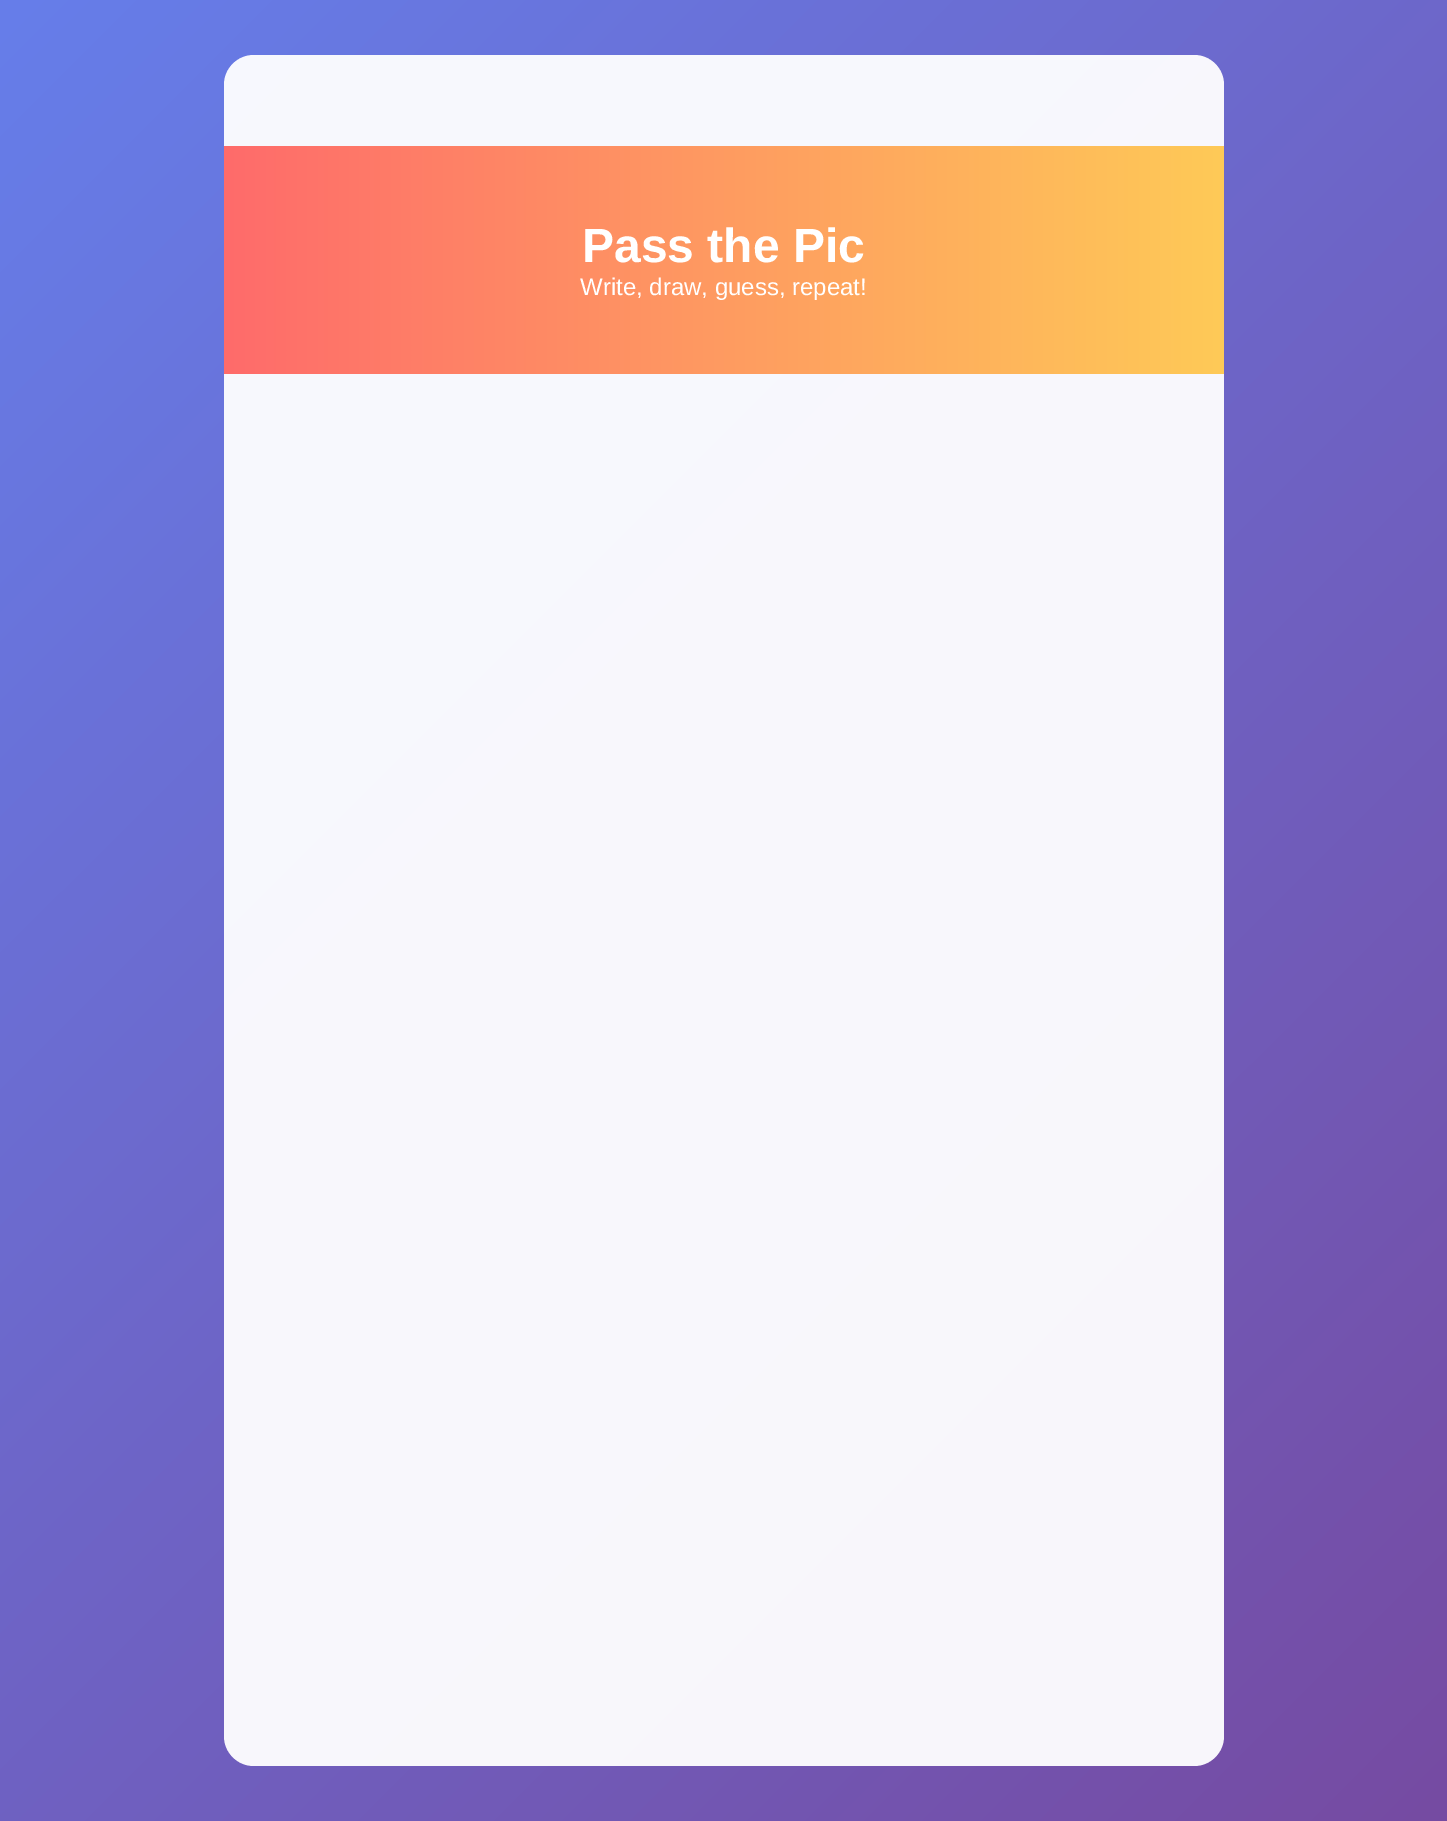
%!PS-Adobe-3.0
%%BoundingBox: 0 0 1447 1821
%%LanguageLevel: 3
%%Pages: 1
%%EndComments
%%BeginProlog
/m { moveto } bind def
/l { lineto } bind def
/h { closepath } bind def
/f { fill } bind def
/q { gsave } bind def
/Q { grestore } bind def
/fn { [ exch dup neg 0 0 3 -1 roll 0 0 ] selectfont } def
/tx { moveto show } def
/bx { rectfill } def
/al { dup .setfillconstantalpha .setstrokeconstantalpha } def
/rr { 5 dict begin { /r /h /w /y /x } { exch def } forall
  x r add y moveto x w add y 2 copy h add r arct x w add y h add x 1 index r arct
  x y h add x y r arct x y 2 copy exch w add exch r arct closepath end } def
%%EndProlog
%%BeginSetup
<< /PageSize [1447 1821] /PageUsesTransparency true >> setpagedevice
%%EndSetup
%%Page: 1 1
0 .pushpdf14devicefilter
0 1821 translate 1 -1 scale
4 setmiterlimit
1 setgray
0 0 1447 1821 bx
q 0 0 m 1447 0 l 1447 1821 l 0 1821 l h clip newpath
<< /ShadingType 2 /ColorSpace /DeviceRGB /Coords [-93 93 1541 1728] /Extend [true true] /Function << /FunctionType 2 /Domain [0 1] /C0 [0.4 0.494 0.918] /C1 [0.463 0.294 0.635] /N 1 >> >> shfill Q
0.95 al
224 55 1000 1711 30 rr f
1 al
q 224 146 m 1224 146 l 1224 374 l 224 374 l h clip newpath
<< /ShadingType 2 /ColorSpace /DeviceRGB /Coords [224 260 1224 260] /Extend [true true] /Function << /FunctionType 2 /Domain [0 1] /C0 [1 0.42 0.42] /C1 [0.996 0.792 0.341] /N 1 >> >> shfill Q
/LiberationSans-Bold 48 fn
(Pass the Pic) 582 262 tx
/LiberationSans-Regular 24 fn
(Write, draw, guess, repeat!) 580 295 tx
.poppdf14devicefilter showpage
%%EOF
